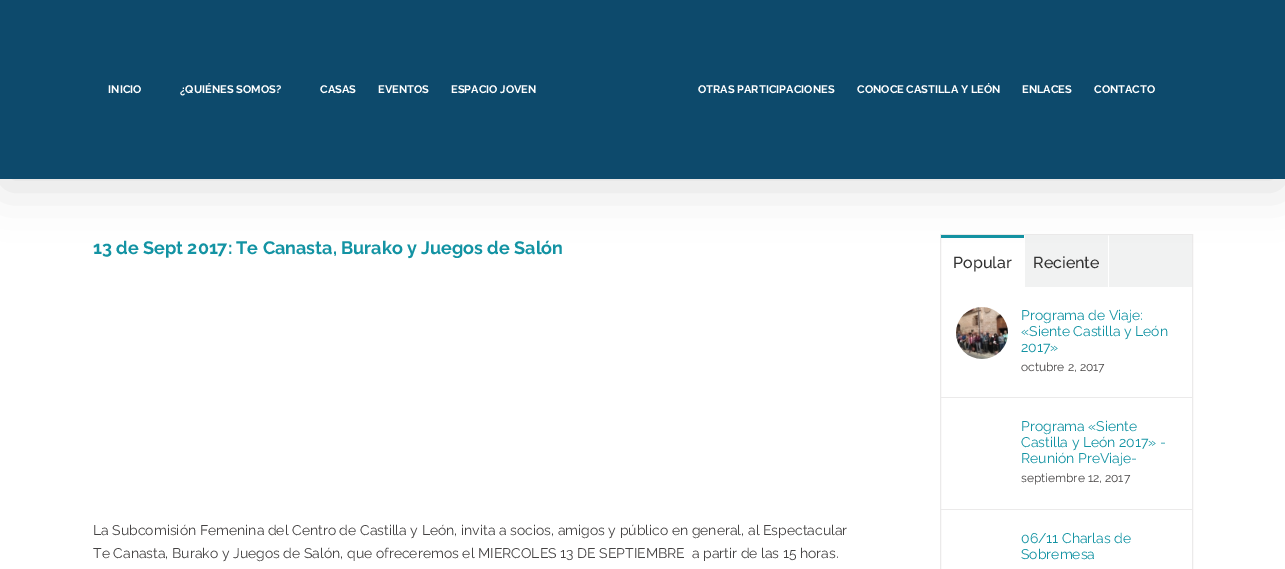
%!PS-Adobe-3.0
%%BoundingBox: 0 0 1285 569
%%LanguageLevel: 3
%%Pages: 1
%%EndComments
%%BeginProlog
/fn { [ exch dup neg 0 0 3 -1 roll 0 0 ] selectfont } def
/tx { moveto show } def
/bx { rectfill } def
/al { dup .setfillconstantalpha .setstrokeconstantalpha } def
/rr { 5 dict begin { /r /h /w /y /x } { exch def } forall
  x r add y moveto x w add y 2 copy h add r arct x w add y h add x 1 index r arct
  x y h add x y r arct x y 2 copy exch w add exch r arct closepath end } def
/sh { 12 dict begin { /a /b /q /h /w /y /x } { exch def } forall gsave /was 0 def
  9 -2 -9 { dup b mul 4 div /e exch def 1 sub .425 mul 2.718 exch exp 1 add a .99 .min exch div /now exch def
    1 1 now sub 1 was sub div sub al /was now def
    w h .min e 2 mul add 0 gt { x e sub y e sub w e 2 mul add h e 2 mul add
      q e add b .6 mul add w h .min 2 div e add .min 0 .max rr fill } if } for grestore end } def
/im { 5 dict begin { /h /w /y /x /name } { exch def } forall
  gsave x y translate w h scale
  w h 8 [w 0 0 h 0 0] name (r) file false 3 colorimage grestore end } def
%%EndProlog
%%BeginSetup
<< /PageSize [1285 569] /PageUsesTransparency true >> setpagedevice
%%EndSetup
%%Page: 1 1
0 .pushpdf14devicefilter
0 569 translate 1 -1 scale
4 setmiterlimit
1 setgray
0 0 1285 569 bx
0.922 0.918 0.918 setrgbcolor
940.5 234.5 252 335 rectstroke
0.075 0.576 0.639 setrgbcolor
941 235 83 3 bx
0.945 0.949 0.949 setrgbcolor
1025 235 83 52 bx
1109 235 83 52 bx
0 setgray
2 12 1281 175 0 25 0.14 sh
0.051 0.29 0.424 setrgbcolor
0 0 1285 179 bx
/Raleway-Bold 11 fn
1 setgray
(INICIO) 108 93 tx
(¿QUIÉNES SOMOS?) 180 93 tx
(CASAS) 320 93 tx
(EVENTOS) 378 93 tx
(ESPACIO JOVEN) 451 93 tx
(OTRAS PARTICIPACIONES) 698 93 tx
(CONOCE CASTILLA Y LEÓN) 857 93 tx
(ENLACES) 1022 93 tx
(CONTACTO) 1094 93 tx
/Raleway-Bold 18 fn
0.075 0.576 0.639 setrgbcolor
(13 de Sept 2017: Te Canasta, Burako y Juegos de Salón) 93 254 tx
/Raleway-Regular 14 fn
0.267 0.259 0.259 setrgbcolor
(La Subcomisión Femenina del Centro de Castilla y León, invita a socios, amigos y público en general, al Espectacular) 93 535 tx
(Te Canasta, Burako y Juegos de Salón, que ofreceremos el MIERCOLES 13 DE SEPTIEMBRE  a partir de las 15 horas.) 93 558 tx
/Raleway-Medium 16 fn
0.2 setgray
(Popular) 953 268 tx
(Reciente) 1033 268 tx
0.922 0.918 0.918 setrgbcolor
941 397 251 1 bx
(image0.raw) 956 307 52 52 im
/Raleway-Regular 14 fn
0.075 0.576 0.639 setrgbcolor
(Programa de Viaje:) 1021 320 tx
(«Siente Castilla y León) 1021 336 tx
(2017») 1021 352 tx
/Raleway-Regular 12 fn
0.267 0.259 0.259 setrgbcolor
(octubre 2, 2017) 1021 371 tx
0.922 0.918 0.918 setrgbcolor
941 509 251 1 bx
/Raleway-Regular 14 fn
0.075 0.576 0.639 setrgbcolor
(Programa «Siente) 1021 431 tx
(Castilla y León 2017» -) 1021 447 tx
(Reunión PreViaje-) 1021 463 tx
/Raleway-Regular 12 fn
0.267 0.259 0.259 setrgbcolor
(septiembre 12, 2017) 1021 482 tx
/Raleway-Regular 14 fn
0.075 0.576 0.639 setrgbcolor
(06/11 Charlas de) 1021 543 tx
(Sobremesa) 1021 559 tx
.poppdf14devicefilter showpage
%%EOF
